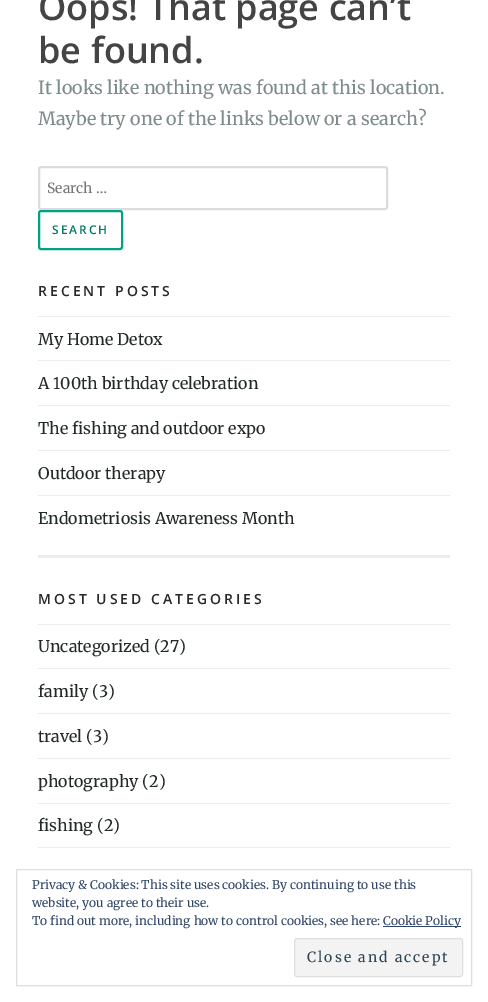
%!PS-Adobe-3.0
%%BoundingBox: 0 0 488 1002
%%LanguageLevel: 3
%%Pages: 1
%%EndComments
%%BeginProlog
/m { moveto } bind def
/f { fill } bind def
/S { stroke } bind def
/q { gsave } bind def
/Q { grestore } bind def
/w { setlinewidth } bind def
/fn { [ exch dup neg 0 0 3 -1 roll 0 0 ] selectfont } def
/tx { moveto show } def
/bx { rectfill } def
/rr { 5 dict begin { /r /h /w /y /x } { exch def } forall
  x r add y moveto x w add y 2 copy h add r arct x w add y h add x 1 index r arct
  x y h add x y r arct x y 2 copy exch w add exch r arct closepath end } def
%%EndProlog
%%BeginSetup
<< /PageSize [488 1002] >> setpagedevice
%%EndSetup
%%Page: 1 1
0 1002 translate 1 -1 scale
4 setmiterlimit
1 setgray
0 0 488 1002 bx
/OpenSans-SemiBold 36 fn
0.267 setgray
(Oops! That page can’t) 38 20 tx
(be found.) 38 63 tx
/Merriweather-Regular 18 fn
0.498 0.549 0.553 setrgbcolor
(It looks like nothing was found at this location.) 38 94 tx
(Maybe try one of the links below or a search?) 38 125 tx
0.863 setgray
2 w
39 167 348 42 2 rr S
/Merriweather-Regular 14 fn
0.459 setgray
(Search …) 47 193 tx
0 0.631 0.522 setrgbcolor
39 211 83 38 2 rr S
/OpenSans-SemiBold 12 fn
0 0.478 0.4 setrgbcolor
52 234 m 2 0 (SEARCH) ashow
0.925 setgray
38 555 412 3 bx
/OpenSans-SemiBold 14 fn
0.157 setgray
38 296 m 3 0 (RECENT POSTS) ashow
0.925 setgray
38 316 412 1 bx
/Merriweather-Regular 16 fn
0.133 0.161 0.161 setrgbcolor
(My Home Detox) 38 345 tx
0.925 setgray
38 360 412 1 bx
0.133 0.161 0.161 setrgbcolor
(A 100th birthday celebration) 38 389 tx
0.925 setgray
38 405 412 1 bx
0.133 0.161 0.161 setrgbcolor
(The fishing and outdoor expo) 38 434 tx
0.925 setgray
38 450 412 1 bx
0.133 0.161 0.161 setrgbcolor
(Outdoor therapy) 38 479 tx
0.925 setgray
38 495 412 1 bx
0.133 0.161 0.161 setrgbcolor
(Endometriosis Awareness Month) 38 524 tx
/OpenSans-SemiBold 14 fn
0.157 setgray
38 604 m 3 0 (MOST USED CATEGORIES) ashow
0.925 setgray
38 624 412 1 bx
/Merriweather-Regular 16 fn
0.133 0.161 0.161 setrgbcolor
(Uncategorized \(27\)) 38 652 tx
0.925 setgray
38 668 412 1 bx
0.133 0.161 0.161 setrgbcolor
(family \(3\)) 38 697 tx
0.925 setgray
38 713 412 1 bx
0.133 0.161 0.161 setrgbcolor
(travel \(3\)) 38 742 tx
0.925 setgray
38 758 412 1 bx
0.133 0.161 0.161 setrgbcolor
(photography \(2\)) 38 787 tx
0.925 setgray
38 803 412 1 bx
0.133 0.161 0.161 setrgbcolor
(fishing \(2\)) 38 831 tx
0.925 setgray
38 847 412 1 bx
0.871 setgray
1 w
16.5 869.5 455 116 rectstroke
/Merriweather-Regular 12 fn
0.18 0.267 0.404 setrgbcolor
(Privacy & Cookies: This site uses cookies. By continuing to use this) 32 889 tx
(website, you agree to their use.) 32 907 tx
(To find out more, including how to control cookies, see here:) 32 925 tx
383 926 78 1 bx
(Cookie Policy) 383 925 tx
0.953 setgray
294.5 938.5 168 38 2.5 rr q f Q
0.871 setgray
S
/Merriweather-Regular 14 fn
0.18 0.267 0.325 setrgbcolor
307 962 m 2 0 (Close and accept) ashow
showpage
%%EOF
